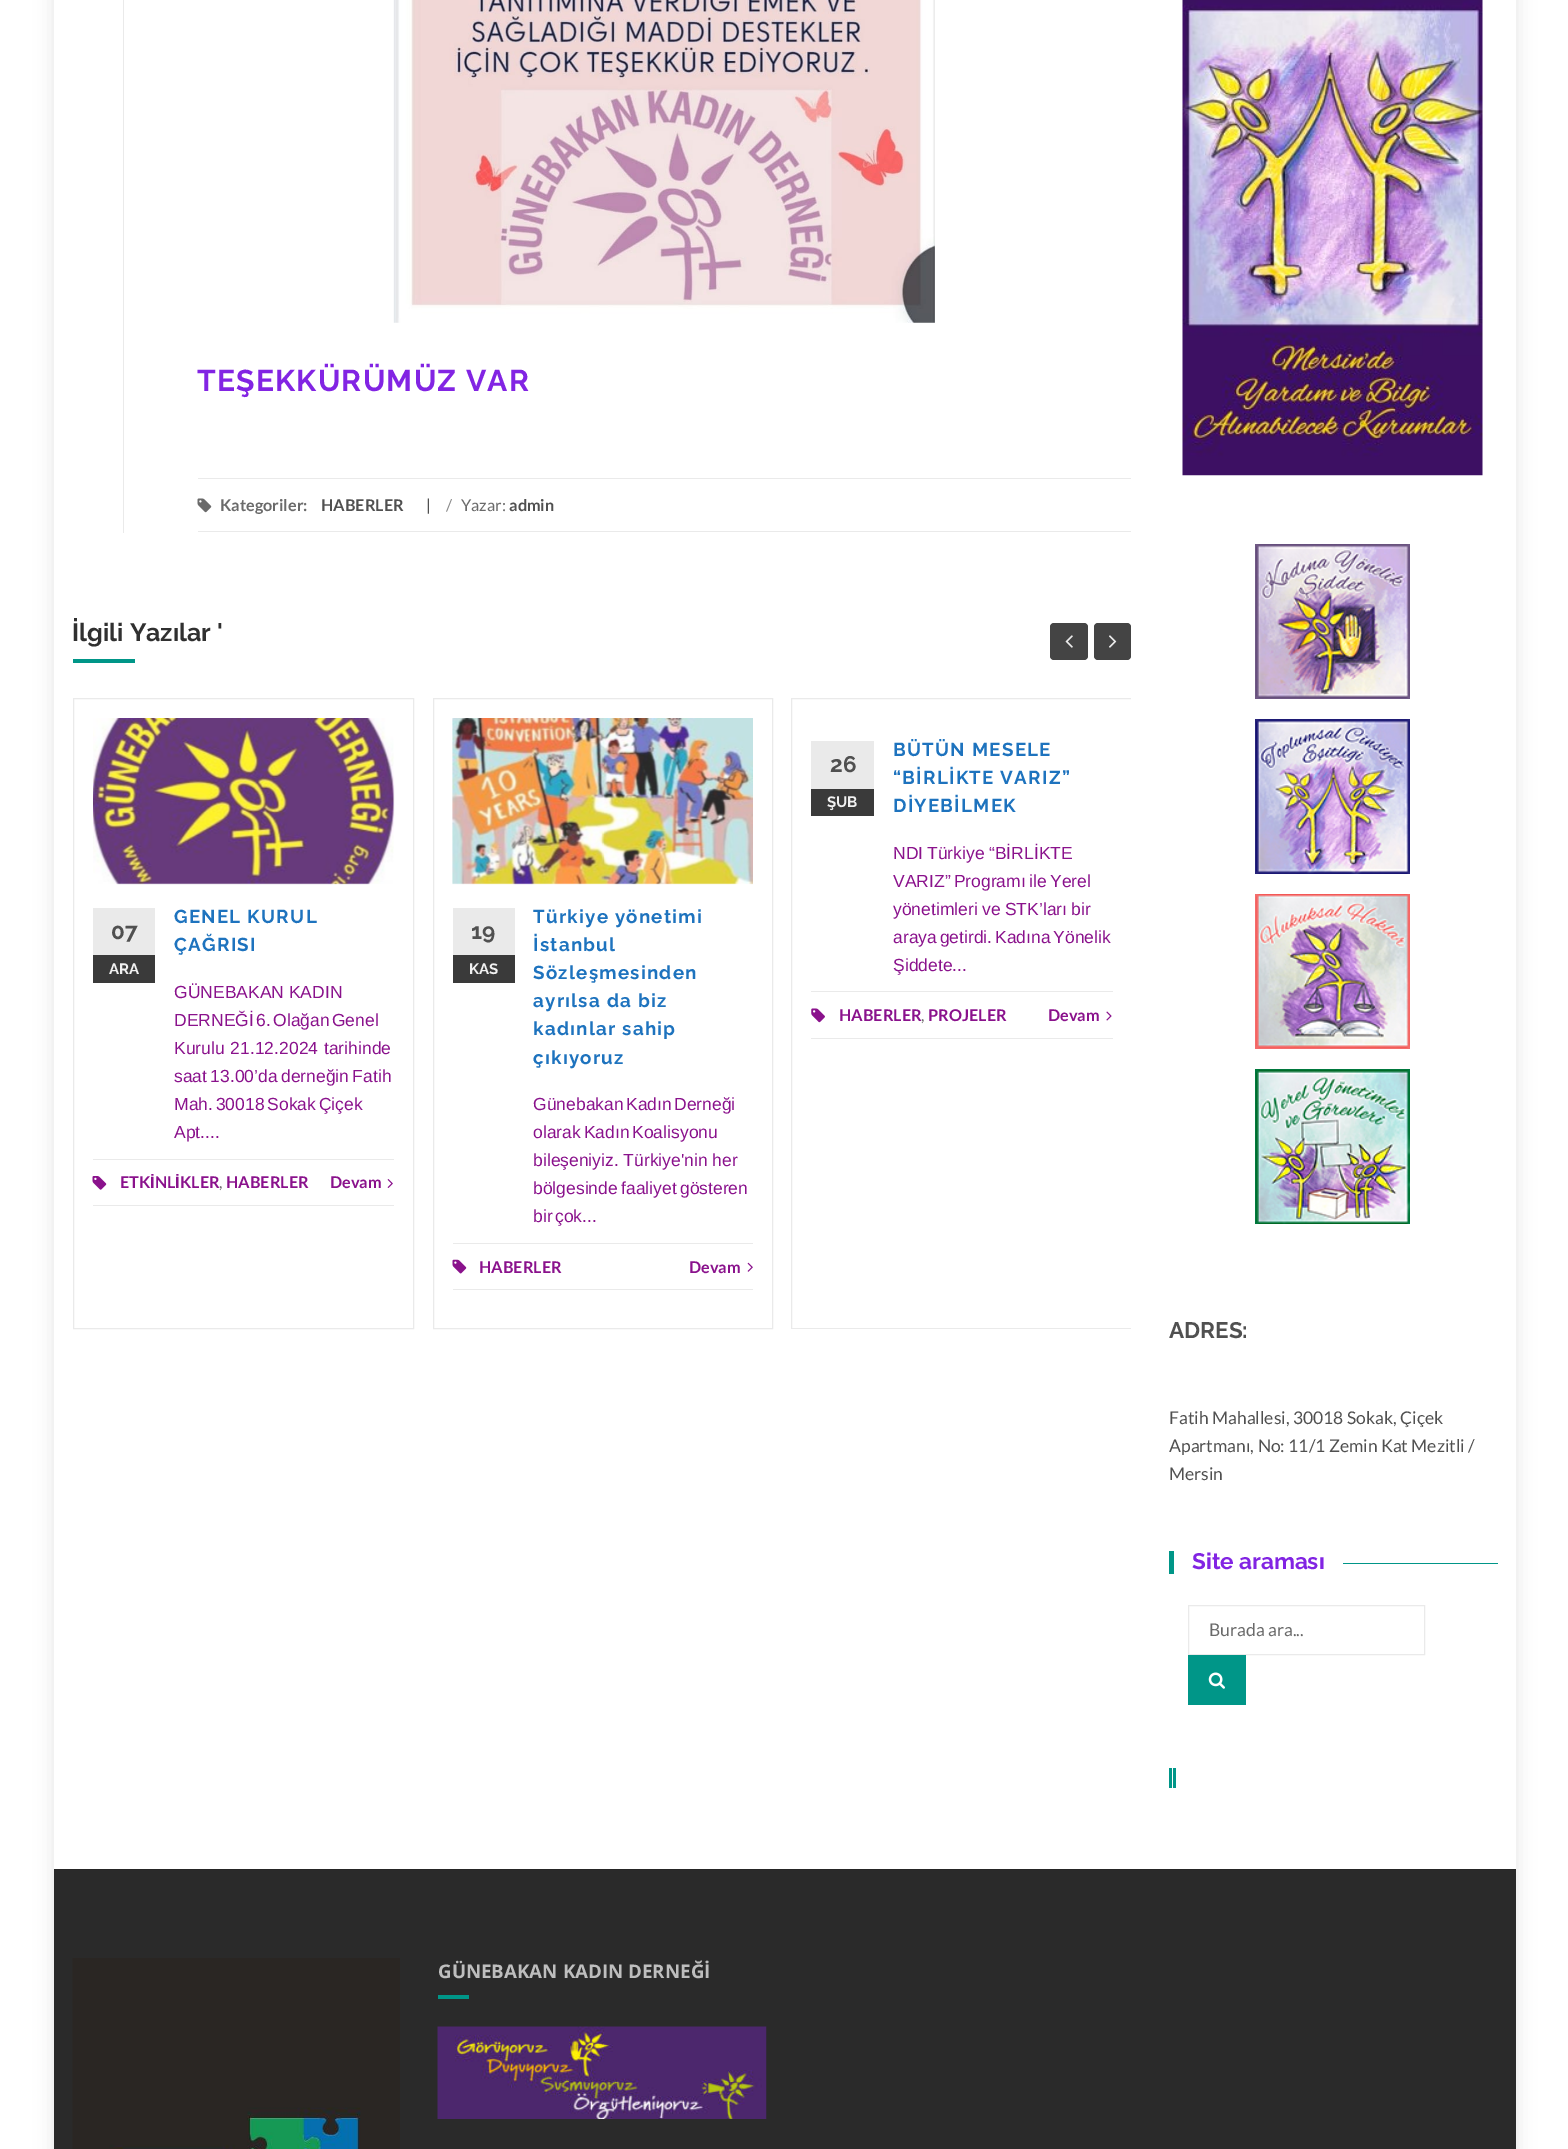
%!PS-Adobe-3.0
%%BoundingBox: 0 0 1568 2149
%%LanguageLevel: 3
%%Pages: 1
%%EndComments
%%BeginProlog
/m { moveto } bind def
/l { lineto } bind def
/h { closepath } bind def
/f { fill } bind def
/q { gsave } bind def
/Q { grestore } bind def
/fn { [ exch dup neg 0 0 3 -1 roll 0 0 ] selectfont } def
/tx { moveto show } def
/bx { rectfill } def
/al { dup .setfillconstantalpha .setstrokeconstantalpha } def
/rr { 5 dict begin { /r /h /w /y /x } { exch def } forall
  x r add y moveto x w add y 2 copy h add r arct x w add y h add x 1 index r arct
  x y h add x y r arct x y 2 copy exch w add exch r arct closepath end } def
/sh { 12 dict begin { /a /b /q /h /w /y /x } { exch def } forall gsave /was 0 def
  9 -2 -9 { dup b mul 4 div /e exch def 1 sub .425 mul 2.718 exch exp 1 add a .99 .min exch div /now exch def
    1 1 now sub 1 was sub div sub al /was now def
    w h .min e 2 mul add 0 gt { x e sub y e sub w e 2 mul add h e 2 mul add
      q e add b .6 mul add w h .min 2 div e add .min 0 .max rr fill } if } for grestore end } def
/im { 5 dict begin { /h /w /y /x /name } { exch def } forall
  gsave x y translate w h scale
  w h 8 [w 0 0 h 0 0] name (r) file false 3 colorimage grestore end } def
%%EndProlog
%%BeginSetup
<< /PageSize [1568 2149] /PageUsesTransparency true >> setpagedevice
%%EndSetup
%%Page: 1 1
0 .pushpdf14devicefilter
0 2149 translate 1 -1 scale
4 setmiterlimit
1 setgray
0 0 1568 2149 bx
q
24 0 m 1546 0 l 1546 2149 l 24 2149 l h 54 -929 m 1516 -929 l 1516 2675 l 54 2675 l h eoclip newpath
0 setgray
54 -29 1462 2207 0 9.5 0.1 sh
Q
0.918 setgray
123 0 1 533 bx
(image0.raw) 393 0 542 323 im
/Raleway-Bold 30 fn
0.51 0.141 0.89 setrgbcolor
197 391 m 1.25 0 (TEŞEKKÜRÜMÜZ VAR) ashow
0.918 setgray
198 478 933 1 bx
198 531 933 1 bx
(image1.raw) 197 498 15 15 im
/Lato-Bold 16.25 fn
0.416 setgray
(Kategoriler:) 220 511 tx
0.314 setgray
(HABERLER) 321 511 tx
/Lato-Regular 16.25 fn
(|) 426 511 tx
0.533 setgray
(/) 446 511 tx
0.416 setgray
(Yazar:) 461 511 tx
/Lato-Bold 16.25 fn
0.314 setgray
(admin) 509 511 tx
/Raleway-Bold 25 fn
0.188 setgray
(İlgili Yazılar ') 72 641 tx
0 0.588 0.533 setrgbcolor
73 659 62 4 bx
0.267 setgray
1050 623 38 37 4 rr f
(image2.raw) 1065 635 8 13 im
1094 623 37 37 4 rr f
(image3.raw) 1109 635 8 13 im
0.918 setgray
73.5 698.5 340 630 rectstroke
(image4.raw) 93 718 302 167 im
93 908 62 47 bx
/Raleway-Bold 22.5 fn
0.314 setgray
(07) 111 939 tx
0.227 setgray
93 955 62 28 bx
/Raleway-Bold 15 fn
0.945 setgray
(ARA) 109 974 tx
/Raleway-Bold 18.75 fn
0.118 0.451 0.745 setrgbcolor
174 923 m 1.25 0 (GENEL KURUL) ashow
174 951 m 1.25 0 (ÇAĞRISI) ashow
/LiberationSans-Regular 17.5 fn
0.541 0.071 0.549 setrgbcolor
(GÜNEBAKAN KADIN) 174 998 tx
174 1026 m -2.5 0 32 (DERNEĞİ 6. Olağan Genel) widthshow
174 1054 m 1 0 32 (Kurulu 21.12.2024 tarihinde) widthshow
174 1082 m -1.5 0 32 (saat 13.00’da derneğin Fatih) widthshow
174 1110 m -2 0 32 (Mah. 30018 Sokak Çiçek) widthshow
(Apt....) 174 1138 tx
0.918 setgray
93 1159 301 1 bx
93 1205 301 1 bx
(image5.raw) 92 1176 15 14 im
/Lato-Bold 16.25 fn
0.541 0.071 0.549 setrgbcolor
(ETK) 120 1188 tx
/LiberationSans-Bold 16.25 fn
(İ) 150 1188 tx
/Lato-Bold 16.25 fn
(NL) 155 1188 tx
/LiberationSans-Bold 16.25 fn
(İ) 175 1188 tx
/Lato-Bold 16.25 fn
(KLER) 180 1188 tx
(HABERLER) 226 1188 tx
/Lato-Regular 16.25 fn
0.416 setgray
(,) 219 1188 tx
/Lato-Bold 16.25 fn
0.541 0.071 0.549 setrgbcolor
(Devam) 330 1188 tx
(image6.raw) 387 1179 6 9 im
0.918 setgray
433.5 698.5 339 630 rectstroke
(image7.raw) 452 718 301 167 im
453 908 62 47 bx
/Raleway-Bold 22.5 fn
0.314 setgray
(19) 471 939 tx
0.227 setgray
453 955 62 28 bx
/Raleway-Bold 15 fn
0.945 setgray
(KAS) 469 974 tx
/Raleway-Bold 18.75 fn
0.118 0.451 0.745 setrgbcolor
533 923 m 1.25 0 (Türkiye yönetimi) ashow
533 951 m 1.25 0 (İstanbul) ashow
533 979 m 1.25 0 (Sözleşmesinden) ashow
533 1007 m 1.25 0 (ayrılsa da biz) ashow
533 1035 m 1.25 0 (kadınlar sahip) ashow
533 1064 m 1.25 0 (çıkıyoruz) ashow
/LiberationSans-Regular 17.5 fn
0.541 0.071 0.549 setrgbcolor
533 1110 m -2.5 0 32 (Günebakan Kadın Derneği) widthshow
533 1138 m -2 0 32 (olarak Kadın Koalisyonu) widthshow
(bileşeniyiz. Türkiye'nin her) 533 1166 tx
533 1194 m -1.5 0 32 (bölgesinde faaliyet gösteren) widthshow
533 1222 m -2.5 0 32 (bir çok...) widthshow
0.918 setgray
453 1243 300 1 bx
453 1289 300 1 bx
(image8.raw) 452 1259 15 15 im
/Lato-Bold 16.25 fn
0.541 0.071 0.549 setrgbcolor
(HABERLER) 479 1273 tx
(Devam) 689 1273 tx
(image9.raw) 747 1262 6 10 im
q
73 698 1058 631 rectclip
0.918 setgray
791.5 698.5 341 630 rectstroke
Q
0.918 setgray
811 741 63 48 bx
/Raleway-Bold 22.5 fn
0.314 setgray
(26) 830 772 tx
0.227 setgray
811 789 63 27 bx
/Raleway-Bold 15 fn
0.945 setgray
(ŞUB) 827 807 tx
/Raleway-Bold 18.75 fn
0.118 0.451 0.745 setrgbcolor
893 756 m 1.25 0 (BÜTÜN MESELE) ashow
893 784 m 1.25 0 (“BİRLİKTE VARIZ”) ashow
893 812 m 1.25 0 (DİYEBİLMEK) ashow
/LiberationSans-Regular 17.5 fn
0.541 0.071 0.549 setrgbcolor
893 859 m -1 0 32 (NDI Türkiye) widthshow
(“BİRLİKTE) 989 859 tx
893 887 m -1.5 0 32 (VARIZ” Programı ile Yerel) widthshow
893 915 m -0.5 0 32 (yönetimleri ve STK’ları bir) widthshow
893 943 m -2 0 32 (araya getirdi. Kadına Yönelik) widthshow
(Şiddete...) 893 971 tx
0.918 setgray
811 991 302 1 bx
811 1038 302 1 bx
(image10.raw) 811 1008 14 15 im
/Lato-Bold 16.25 fn
0.541 0.071 0.549 setrgbcolor
(HABERLER) 839 1021 tx
/Lato-Regular 16.25 fn
0.416 setgray
(,) 921 1021 tx
/Lato-Bold 16.25 fn
0.541 0.071 0.549 setrgbcolor
(PROJELER) 928 1021 tx
(Devam) 1048 1021 tx
(image11.raw) 1106 1011 6 10 im
(image12.raw) 1182 0 301 476 im
(image13.raw) 1255 544 155 155 im
(image14.raw) 1255 719 155 155 im
(image15.raw) 1255 894 155 155 im
(image16.raw) 1255 1069 155 155 im
/Raleway-Bold 22.5 fn
0.314 setgray
(ADRES:) 1169 1338 tx
/Lato-Regular 17.5 fn
(Fatih Mahallesi, 30018 Sokak, Çiçek) 1169 1424 tx
(Apartmanı, No: 11/1 Zemin Kat Mezitli /) 1169 1452 tx
(Mersin) 1169 1480 tx
0 0.588 0.533 setrgbcolor
1169 1551 5 23 bx
/Raleway-Bold 22.5 fn
0.51 0.141 0.89 setrgbcolor
(Site araması) 1192 1569 tx
0 0.588 0.533 setrgbcolor
1343 1563 155 1 bx
0.918 setgray
1188.5 1605.5 236 49 rectstroke
/Lato-Regular 17.5 fn
0.416 setgray
(Burada ara...) 1209 1636 tx
0 0.588 0.533 setrgbcolor
1188 1655 58 50 bx
(image17.raw) 1208 1672 17 17 im
1169 1768 3 20 bx
1173 1768 3 20 bx
0.165 setgray
54 1870 1462 279 bx
0.149 setgray
54 1869 1462 1 bx
(image18.raw) 72 1958 328 191 im
/OpenSans-Bold 18.75 fn
0.745 setgray
(GÜNEBAKAN KADIN DERNEĞİ) 438 1978 tx
0 0.588 0.533 setrgbcolor
438 1995 31 4 bx
(image19.raw) 437 2026 330 93 im
.poppdf14devicefilter showpage
%%EOF
